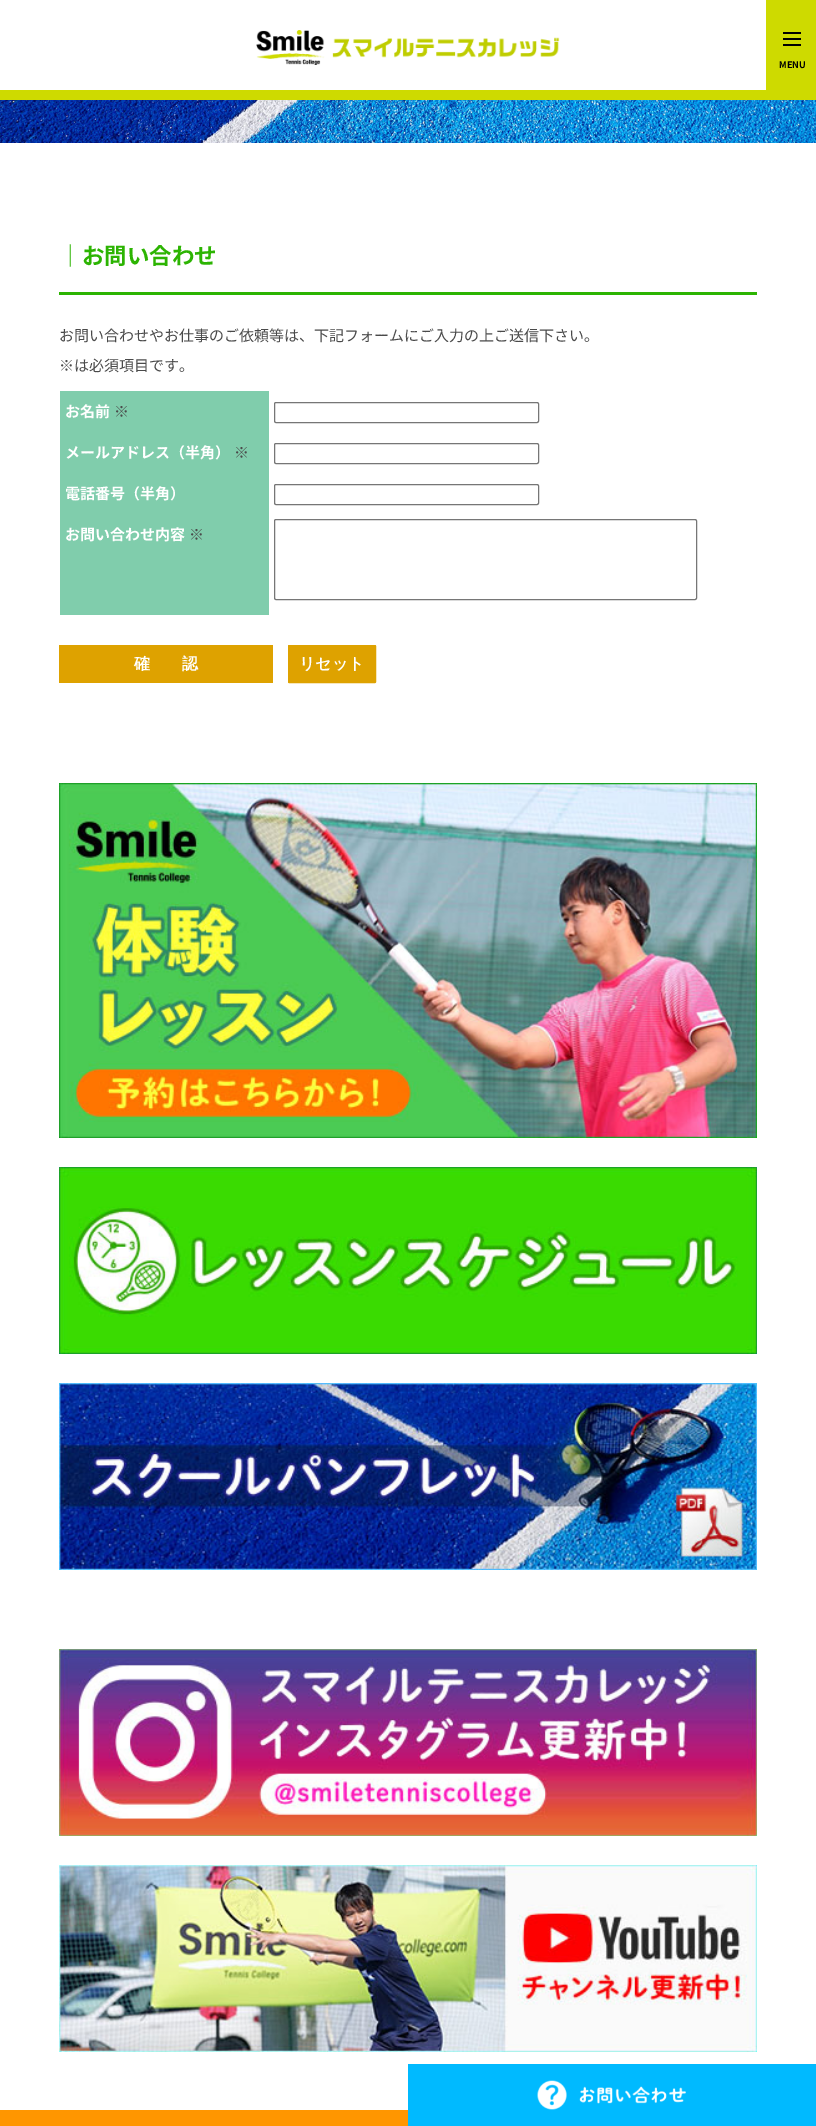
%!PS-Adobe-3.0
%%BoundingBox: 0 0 816 2126
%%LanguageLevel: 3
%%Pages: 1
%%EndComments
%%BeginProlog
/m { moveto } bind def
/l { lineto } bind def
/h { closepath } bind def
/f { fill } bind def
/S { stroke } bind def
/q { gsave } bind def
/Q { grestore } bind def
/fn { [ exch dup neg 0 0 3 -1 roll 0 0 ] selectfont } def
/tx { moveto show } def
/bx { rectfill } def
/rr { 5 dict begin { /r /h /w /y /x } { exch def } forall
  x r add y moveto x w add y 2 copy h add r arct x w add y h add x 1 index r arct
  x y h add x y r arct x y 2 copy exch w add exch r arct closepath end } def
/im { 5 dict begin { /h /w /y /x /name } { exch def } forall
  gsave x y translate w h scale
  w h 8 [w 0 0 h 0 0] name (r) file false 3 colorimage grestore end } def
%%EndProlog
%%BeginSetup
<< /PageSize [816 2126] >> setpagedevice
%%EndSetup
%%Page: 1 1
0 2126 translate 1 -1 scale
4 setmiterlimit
1 setgray
0 0 816 2126 bx
0.808 0.855 0 setrgbcolor
0 90 816 10 bx
(image0.raw) 256 30 304 35 im
766 0 50 90 bx
0 setgray
783 38 18 2 bx
783 32 18 2 bx
783 44 18 2 bx
/NotoSansJP-Bold 9 fn
(MENU) 779 68 tx
(image1.raw) 0 100 816 43 im
0.173 0.706 0.008 setrgbcolor
59 292 698 3 bx
/NotoSansJP-Bold 22.5 fn
(｜お問い合わせ) 59 264 tx
/NotoSansJP-Regular 15 fn
0.29 setgray
(お問い合わせやお仕事のご依頼等は、下記フォームにご入力の上ご送信下さい。) 59 341 tx
(※は必須項目です。) 59 371 tx
0.502 0.804 0.675 setrgbcolor
60 391 209 224 bx
/NotoSansJP-Bold 15 fn
1 setgray
(お名前) 65 417 tx
0.29 setgray
(※) 114 417 tx
0.463 setgray
274.5 402.5 264 20 1.5 rr S
1 setgray
(メールアドレス（半角）) 65 458 tx
0.29 setgray
(※) 234 458 tx
0.463 setgray
274.5 443.5 264 20 1.5 rr S
1 setgray
(電話番号（半角）) 65 499 tx
0.463 setgray
274.5 484.5 264 20 1.5 rr S
1 setgray
(お問い合わせ内容) 65 540 tx
0.29 setgray
(※) 189 540 tx
0.463 setgray
274.5 519.5 422 80 1.5 rr S
0.871 0.635 0 setrgbcolor
61 645 m 271 645 l 273 645 l 273 683 l 271 683 l 61 683 l 59 683 l 59 645 l h f
/WenQuanYiZenHei-Bold 16 fn
1 setgray
(確　　認) 134 669 tx
0.871 0.635 0 setrgbcolor
288.5 645.5 87 37 0.5 rr q f Q
S
1 setgray
(リセット) 299 669 tx
(image2.raw) 59 783 698 355 im
(image3.raw) 59 1167 698 187 im
(image4.raw) 59 1383 698 187 im
(image5.raw) 59 1649 698 187 im
(image6.raw) 59 1865 698 187 im
1 0.588 0 setrgbcolor
0 2110 408 16 bx
0 0.729 1 setrgbcolor
408 2064 408 62 bx
(image7.raw) 537 2080 149 30 im
showpage
%%EOF
